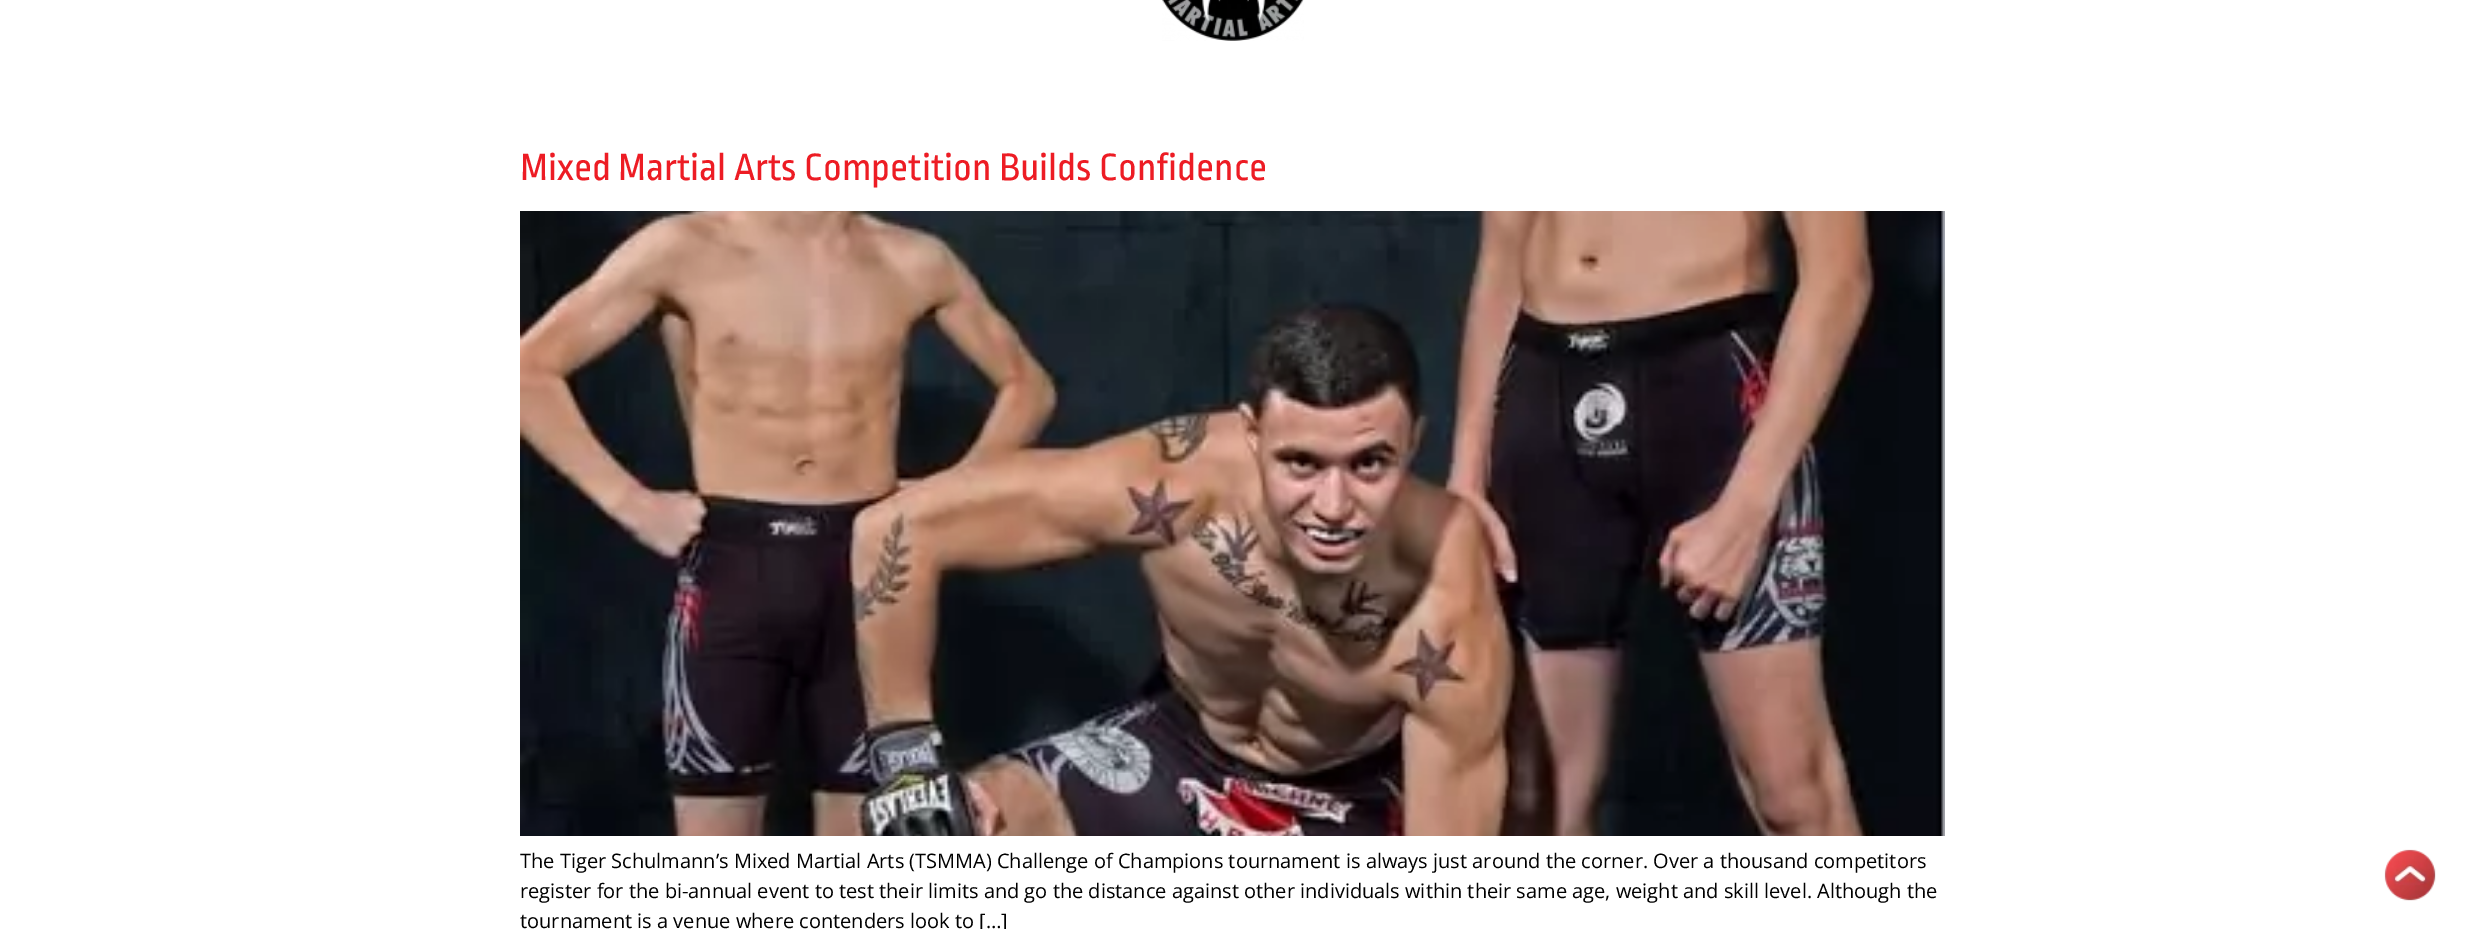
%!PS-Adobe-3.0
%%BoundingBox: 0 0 2465 929
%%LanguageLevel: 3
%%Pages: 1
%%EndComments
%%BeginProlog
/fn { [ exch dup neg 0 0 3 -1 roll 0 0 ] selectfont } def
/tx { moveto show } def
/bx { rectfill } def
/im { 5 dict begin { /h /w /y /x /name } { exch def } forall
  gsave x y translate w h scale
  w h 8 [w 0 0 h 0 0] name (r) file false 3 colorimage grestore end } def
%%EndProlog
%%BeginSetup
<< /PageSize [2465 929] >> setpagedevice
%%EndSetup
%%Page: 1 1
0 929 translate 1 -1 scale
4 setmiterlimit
1 setgray
0 0 2465 929 bx
(image0.raw) 1162 0 142 41 im
/RopaSans-Regular 40 fn
0.929 0.11 0.141 setrgbcolor
(Mixed Martial Arts Competition Builds Confidence) 520 180 tx
(image1.raw) 520 211 1425 625 im
/OpenSans-Regular 20 fn
0 setgray
(The Tiger Schulmann’s Mixed Martial Arts \(TSMMA\) Challenge of Champions tournament is always just around the corner. Over a thousand competitors) 520 868 tx
(register for the bi-annual event to test their limits and go the distance against other individuals within their same age, weight and skill level. Although the) 520 898 tx
(tournament is a venue where contenders look to […]) 520 928 tx
(image2.raw) 2384 849 52 52 im
showpage
%%EOF
